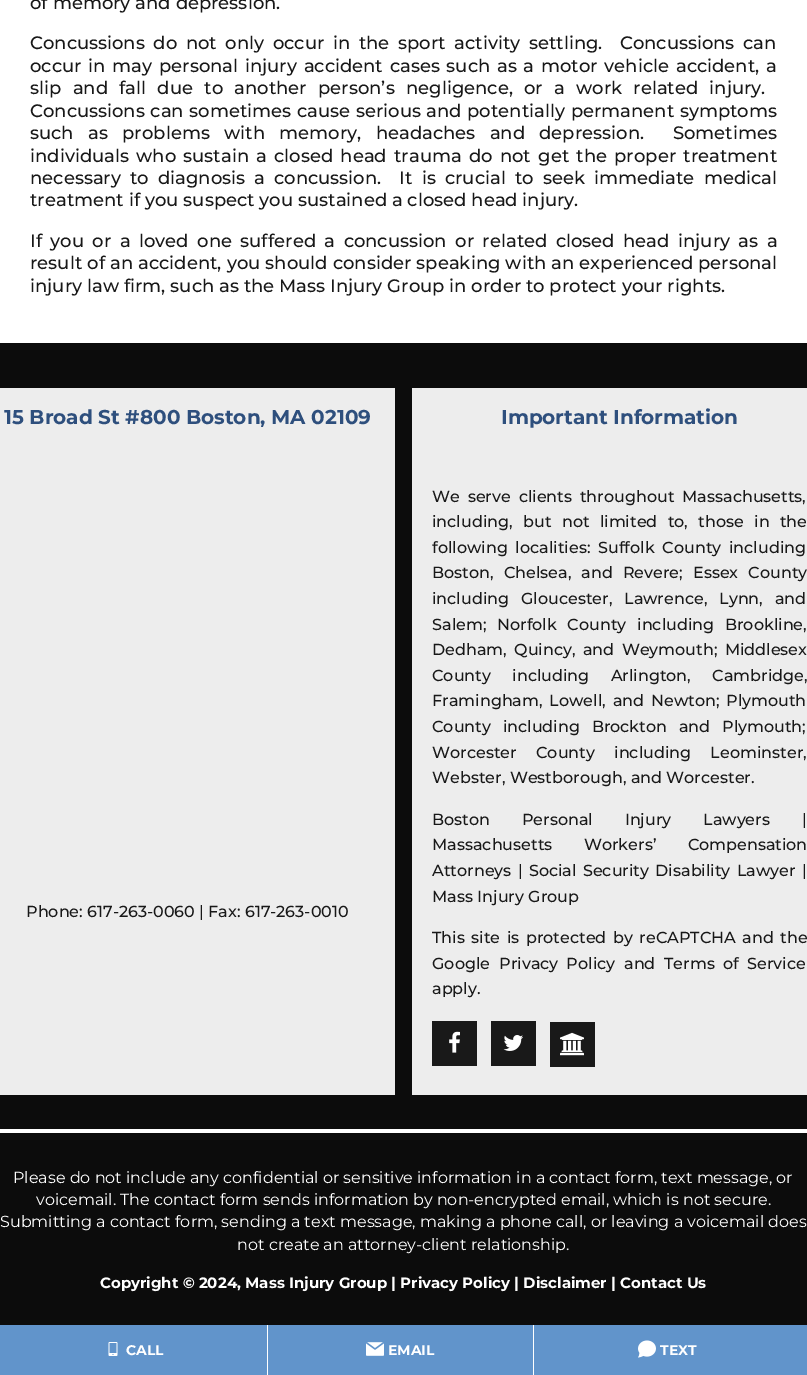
%!PS-Adobe-3.0
%%BoundingBox: 0 0 807 1375
%%LanguageLevel: 3
%%Pages: 1
%%EndComments
%%BeginProlog
/m { moveto } bind def
/fn { [ exch dup neg 0 0 3 -1 roll 0 0 ] selectfont } def
/tx { moveto show } def
/bx { rectfill } def
/im { 5 dict begin { /h /w /y /x /name } { exch def } forall
  gsave x y translate w h scale
  w h 8 [w 0 0 h 0 0] name (r) file false 3 colorimage grestore end } def
%%EndProlog
%%BeginSetup
<< /PageSize [807 1375] >> setpagedevice
%%EndSetup
%%Page: 1 1
0 1375 translate 1 -1 scale
4 setmiterlimit
1 setgray
0 0 807 1375 bx
/Montserrat-Medium 18 fn
0.094 setgray
(of memory and depression.) 30 9 tx
30 49 m 3.75 0 32 (Concussions do not only occur in the sport activity settling.  Concussions can) widthshow
30 72 m 1.9 0 32 (occur in may personal injury accident cases such as a motor vehicle accident, a) widthshow
30 94 m 6.4 0 32 (slip and fall due to another person’s negligence, or a work related injury.) widthshow
30 117 m 0.75 0 32 (Concussions can sometimes cause serious and potentially permanent symptoms) widthshow
30 139 m 9.5 0 32 (such as problems with memory, headaches and depression.  Sometimes) widthshow
30 162 m 2.4 0 32 (individuals who sustain a closed head trauma do not get the proper treatment) widthshow
30 184 m 4.25 0 32 (necessary to diagnosis a concussion.  It is crucial to seek immediate medical) widthshow
(treatment if you suspect you sustained a closed head injury.) 30 206 tx
30 247 m 3.6 0 32 (If you or a loved one suffered a concussion or related closed head injury as a) widthshow
30 269 m 0.25 0 32 (result of an accident, you should consider speaking with an experienced personal) widthshow
(injury law firm, such as the Mass Injury Group in order to protect your rights.) 30 292 tx
0.047 setgray
0 343 807 982 bx
0.929 setgray
0 388 395 707 bx
/Montserrat-Bold 20 fn
0.18 0.31 0.49 setrgbcolor
(15 Broad St #800 Boston, MA 02109) 4 424 tx
/Montserrat-Medium 16 fn
0.094 setgray
(Phone: 617-263-0060 | Fax: 617-263-0010) 26 917 tx
0.929 setgray
412 388 395 707 bx
/Montserrat-Bold 20 fn
0.18 0.31 0.49 setrgbcolor
(Important Information) 501 424 tx
/Montserrat-Medium 16 fn
0.094 setgray
432 502 m 3.5 0 32 (We serve clients throughout Massachusetts,) widthshow
432 527 m 6 0 32 (including, but not limited to, those in the) widthshow
432 553 m 3.5 0 32 (following localities: Suffolk County including) widthshow
432 578 m 5.75 0 32 (Boston, Chelsea, and Revere; Essex County) widthshow
432 604 m 7.5 0 32 (including Gloucester, Lawrence, Lynn, and) widthshow
432 630 m 6.4 0 32 (Salem; Norfolk County including Brookline,) widthshow
432 655 m 3 0 32 (Dedham, Quincy, and Weymouth; Middlesex) widthshow
432 681 m 17 0 32 (County including Arlington, Cambridge,) widthshow
432 706 m 2.5 0 32 (Framingham, Lowell, and Newton; Plymouth) widthshow
432 732 m 7.5 0 32 (County including Brockton and Plymouth;) widthshow
432 758 m 15 0 32 (Worcester County including Leominster,) widthshow
(Webster, Westborough, and Worcester.) 432 783 tx
432 825 m 27.5 0 32 (Boston Personal Injury Lawyers |) widthshow
432 850 m 27 0 32 (Massachusetts Workers’ Compensation) widthshow
432 876 m 2 0 32 (Attorneys | Social Security Disability Lawyer |) widthshow
(Mass Injury Group) 432 902 tx
432 943 m 2.25 0 32 (This site is protected by reCAPTCHA and the) widthshow
(Google) 432 969 tx
499 969 m 4 0 32 (Privacy Policy) widthshow
(and) 624 969 tx
664 969 m 4 0 32 (Terms of Service) widthshow
(apply.) 432 994 tx
0.098 setgray
432 1021 45 45 bx
(image0.raw) 449 1031 11 22 im
491 1021 45 45 bx
(image1.raw) 503 1035 20 16 im
550 1022 45 45 bx
(image2.raw) 560 1032 24 24 im
1 setgray
0 1129 807 4 bx
/Montserrat-Regular 16 fn
(Please do not include any confidential or sensitive information in a contact form, text message, or) 13 1183 tx
(voicemail. The contact form sends information by non-encrypted email, which is not secure.) 36 1205 tx
(Submitting a contact form, sending a text message, making a phone call, or leaving a voicemail does) 0 1227 tx
(not create an attorney-client relationship.) 237 1250 tx
/Montserrat-Bold 15 fn
(Copyright © 2024, Mass Injury Group | Privacy Policy | Disclaimer | Contact Us) 100 1288 tx
0.38 0.58 0.796 setrgbcolor
0 1325 807 50 bx
(image3.raw) 108 1342 10 14 im
/Montserrat-Bold 14 fn
1 setgray
(CALL) 126 1355 tx
533 1325 1 50 bx
267 1325 1 50 bx
(image4.raw) 366 1342 18 14 im
(EMAIL) 388 1355 tx
(image5.raw) 638 1340 18 18 im
(TEXT) 660 1355 tx
showpage
%%EOF
